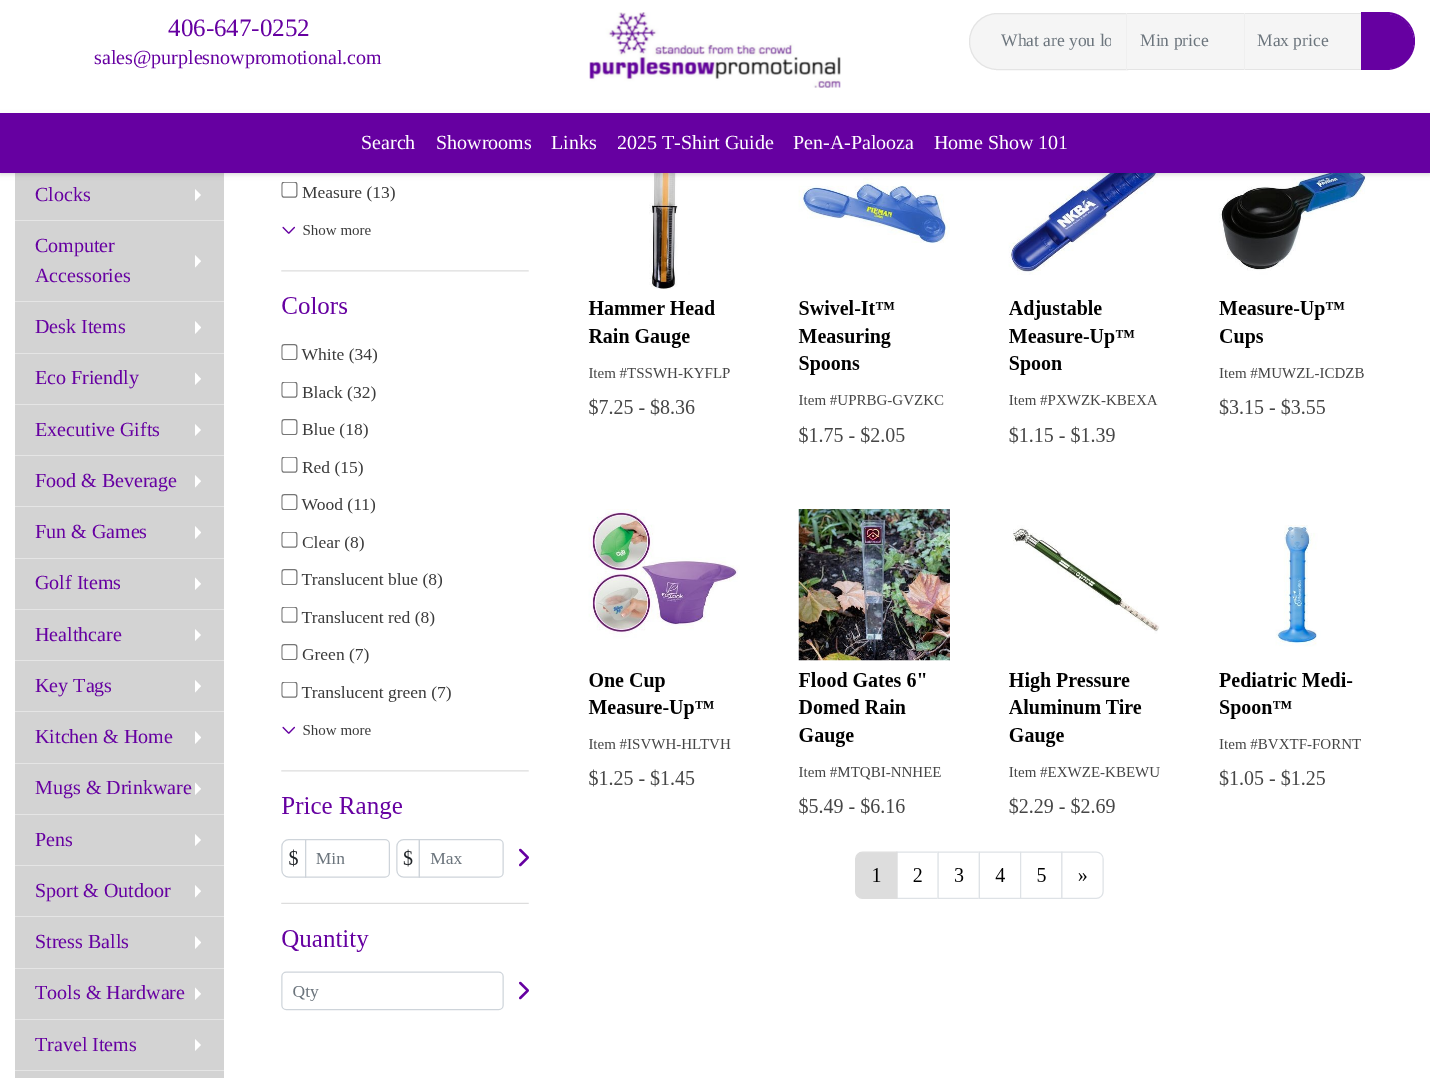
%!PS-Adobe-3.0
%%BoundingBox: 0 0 1430 1078
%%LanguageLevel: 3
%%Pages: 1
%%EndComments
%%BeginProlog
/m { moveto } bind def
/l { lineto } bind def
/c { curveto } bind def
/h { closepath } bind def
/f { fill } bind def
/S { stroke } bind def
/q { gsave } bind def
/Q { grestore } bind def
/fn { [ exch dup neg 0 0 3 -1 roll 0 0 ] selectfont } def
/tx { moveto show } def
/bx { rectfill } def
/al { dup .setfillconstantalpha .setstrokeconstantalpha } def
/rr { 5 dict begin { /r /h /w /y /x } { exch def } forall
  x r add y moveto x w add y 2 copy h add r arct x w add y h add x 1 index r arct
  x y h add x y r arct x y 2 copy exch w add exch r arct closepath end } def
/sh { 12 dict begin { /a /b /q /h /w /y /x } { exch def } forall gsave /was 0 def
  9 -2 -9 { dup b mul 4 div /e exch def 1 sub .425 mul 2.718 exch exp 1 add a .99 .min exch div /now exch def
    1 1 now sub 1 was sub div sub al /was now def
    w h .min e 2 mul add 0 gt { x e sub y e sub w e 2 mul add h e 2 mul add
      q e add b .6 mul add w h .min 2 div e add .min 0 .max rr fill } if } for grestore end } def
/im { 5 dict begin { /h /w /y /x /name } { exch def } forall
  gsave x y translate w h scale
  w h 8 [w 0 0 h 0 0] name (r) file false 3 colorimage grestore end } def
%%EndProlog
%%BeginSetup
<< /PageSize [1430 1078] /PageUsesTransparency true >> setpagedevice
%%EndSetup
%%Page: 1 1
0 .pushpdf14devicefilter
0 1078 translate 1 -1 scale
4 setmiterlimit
1 setgray
0 0 1430 1078 bx
0.827 setgray
15 173 209 47 bx
(image1.raw) 281 173 1085 838 im
0 setgray
0 0 1430 173 0 3 0.1 sh
1 setgray
0 0 1430 113 bx
/LiberationSerif-Regular 25 fn
0.4 0 0.631 setrgbcolor
(406-647-0252) 168 36 tx
/LiberationSerif-Regular 20 fn
(sales@purplesnowpromotional.com) 94 64 tx
(image0.raw) 589 12 252 76 im
0.961 setgray
997.5 13.5 m 1127.5 13.5 l 1127.5 69.5 l 997.5 69.5 l 982 69.5 969.5 57 969.5 41.5 c 969.5 26 982 13.5 997.5 13.5 c h q f Q
0.894 setgray
S
q
1001 31 110 20 rectclip
/LiberationSerif-Regular 17.5 fn
0.424 0.459 0.49 setrgbcolor
(What are you lo) 1001 46 tx
Q
0.961 setgray
1127 14 117 55 bx
0.894 setgray
1126 13 237 1 bx
1126 69 237 1 bx
0.937 setgray
1126 13 1 57 bx
/LiberationSerif-Regular 17.5 fn
0.424 0.459 0.49 setrgbcolor
(Min price) 1140 46 tx
0.961 setgray
1245 14 116 55 bx
0.937 setgray
1244 13 1 57 bx
0.424 0.459 0.49 setrgbcolor
(Max price) 1257 46 tx
0.4 0 0.631 setrgbcolor
1361 14 m 1386.5 14 l 1401.5 14 1414 26.5 1414 41.5 c 1414 56.5 1401.5 69 1386.5 69 c 1361 69 l h f
1361 12 m 1386 12 l 1402 12 1415 25 1415 41 c 1415 57 1402 70 1386 70 c 1361 70 l h 1361 14 m 1386 14 l 1401 14 1414 26 1414 41 c 1414 56 1401 69 1386 69 c 1361 69 l h eofill
0 setgray
0 115 1430 60 0 2.5 0.07 sh
0.4 0 0.631 setrgbcolor
0 113 1430 60 bx
/LiberationSerif-Regular 20 fn
1 setgray
(Search) 361 149 tx
(Showrooms) 436 149 tx
(Links) 551 149 tx
(2025 T-Shirt Guide) 617 149 tx
(Pen-A-Palooza) 793 149 tx
(Home Show 101) 934 149 tx
0.4 0 0.631 setrgbcolor
(Clocks) 35 201 tx
1 setgray
195 201 m 195 189 l 201 195 l h f
0.827 setgray
15 221 209 80 bx
0.898 setgray
15 220 209 1 bx
0.4 0 0.631 setrgbcolor
(Computer) 35 252 tx
1 setgray
195 267.5 m 195 255 l 201 261 l h f
0.4 0 0.631 setrgbcolor
(Accessories) 35 282 tx
0.827 setgray
15 302 209 51 bx
0.898 setgray
15 301 209 1 bx
0.4 0 0.631 setrgbcolor
(Desk Items) 35 333 tx
1 setgray
195 334 m 195 321 l 201 327.5 l h f
0.827 setgray
15 354 209 50 bx
0.898 setgray
15 353 209 1 bx
0.4 0 0.631 setrgbcolor
(Eco Friendly) 35 384 tx
1 setgray
195 385 m 195 372.5 l 201 379 l h f
0.827 setgray
15 405 209 50 bx
0.898 setgray
15 404 209 1 bx
0.4 0 0.631 setrgbcolor
(Executive Gifts) 35 436 tx
1 setgray
195 436 m 195 424 l 201 430 l h f
0.827 setgray
15 456 209 50 bx
0.898 setgray
15 455 209 1 bx
0.4 0 0.631 setrgbcolor
(Food & Beverage) 35 487 tx
1 setgray
195 487.5 m 195 475 l 201 481 l h f
0.827 setgray
15 507 209 51 bx
0.898 setgray
15 506 209 1 bx
0.4 0 0.631 setrgbcolor
(Fun & Games) 35 538 tx
1 setgray
195 539 m 195 526 l 201 532.5 l h f
0.827 setgray
15 559 209 50 bx
0.898 setgray
15 558 209 1 bx
0.4 0 0.631 setrgbcolor
(Golf Items) 35 589 tx
1 setgray
195 590 m 195 577.5 l 201 584 l h f
0.827 setgray
15 610 209 50 bx
0.898 setgray
15 609 209 1 bx
0.4 0 0.631 setrgbcolor
(Healthcare) 35 641 tx
1 setgray
195 641 m 195 629 l 201 635 l h f
0.827 setgray
15 661 209 50 bx
0.898 setgray
15 660 209 1 bx
0.4 0 0.631 setrgbcolor
(Key Tags) 35 692 tx
1 setgray
195 692.5 m 195 680 l 201 686 l h f
0.827 setgray
15 712 209 51 bx
0.898 setgray
15 711 209 1 bx
0.4 0 0.631 setrgbcolor
(Kitchen & Home) 35 743 tx
1 setgray
195 744 m 195 731 l 201 737.5 l h f
0.827 setgray
15 764 209 50 bx
0.898 setgray
15 763 209 1 bx
0.4 0 0.631 setrgbcolor
(Mugs & Drinkware) 35 794 tx
1 setgray
195 795 m 195 782.5 l 201 789 l h f
0.827 setgray
15 815 209 50 bx
0.898 setgray
15 814 209 1 bx
0.4 0 0.631 setrgbcolor
(Pens) 35 846 tx
1 setgray
195 846 m 195 834 l 201 840 l h f
0.827 setgray
15 866 209 50 bx
0.898 setgray
15 865 209 1 bx
0.4 0 0.631 setrgbcolor
(Sport & Outdoor) 35 897 tx
1 setgray
195 897.5 m 195 885 l 201 891 l h f
0.827 setgray
15 917 209 51 bx
0.898 setgray
15 916 209 1 bx
0.4 0 0.631 setrgbcolor
(Stress Balls) 35 948 tx
1 setgray
195 949 m 195 936 l 201 942.5 l h f
0.827 setgray
15 969 209 50 bx
0.898 setgray
15 968 209 1 bx
0.4 0 0.631 setrgbcolor
(Tools & Hardware) 35 999 tx
1 setgray
195 1000 m 195 987.5 l 201 994 l h f
0.827 setgray
15 1020 209 50 bx
0.898 setgray
15 1019 209 1 bx
0.4 0 0.631 setrgbcolor
(Travel Items) 35 1051 tx
1 setgray
195 1051 m 195 1039 l 201 1045 l h f
0.827 setgray
15 1071 209 7 bx
0.898 setgray
15 1070 209 1 bx
.poppdf14devicefilter showpage
%%EOF
